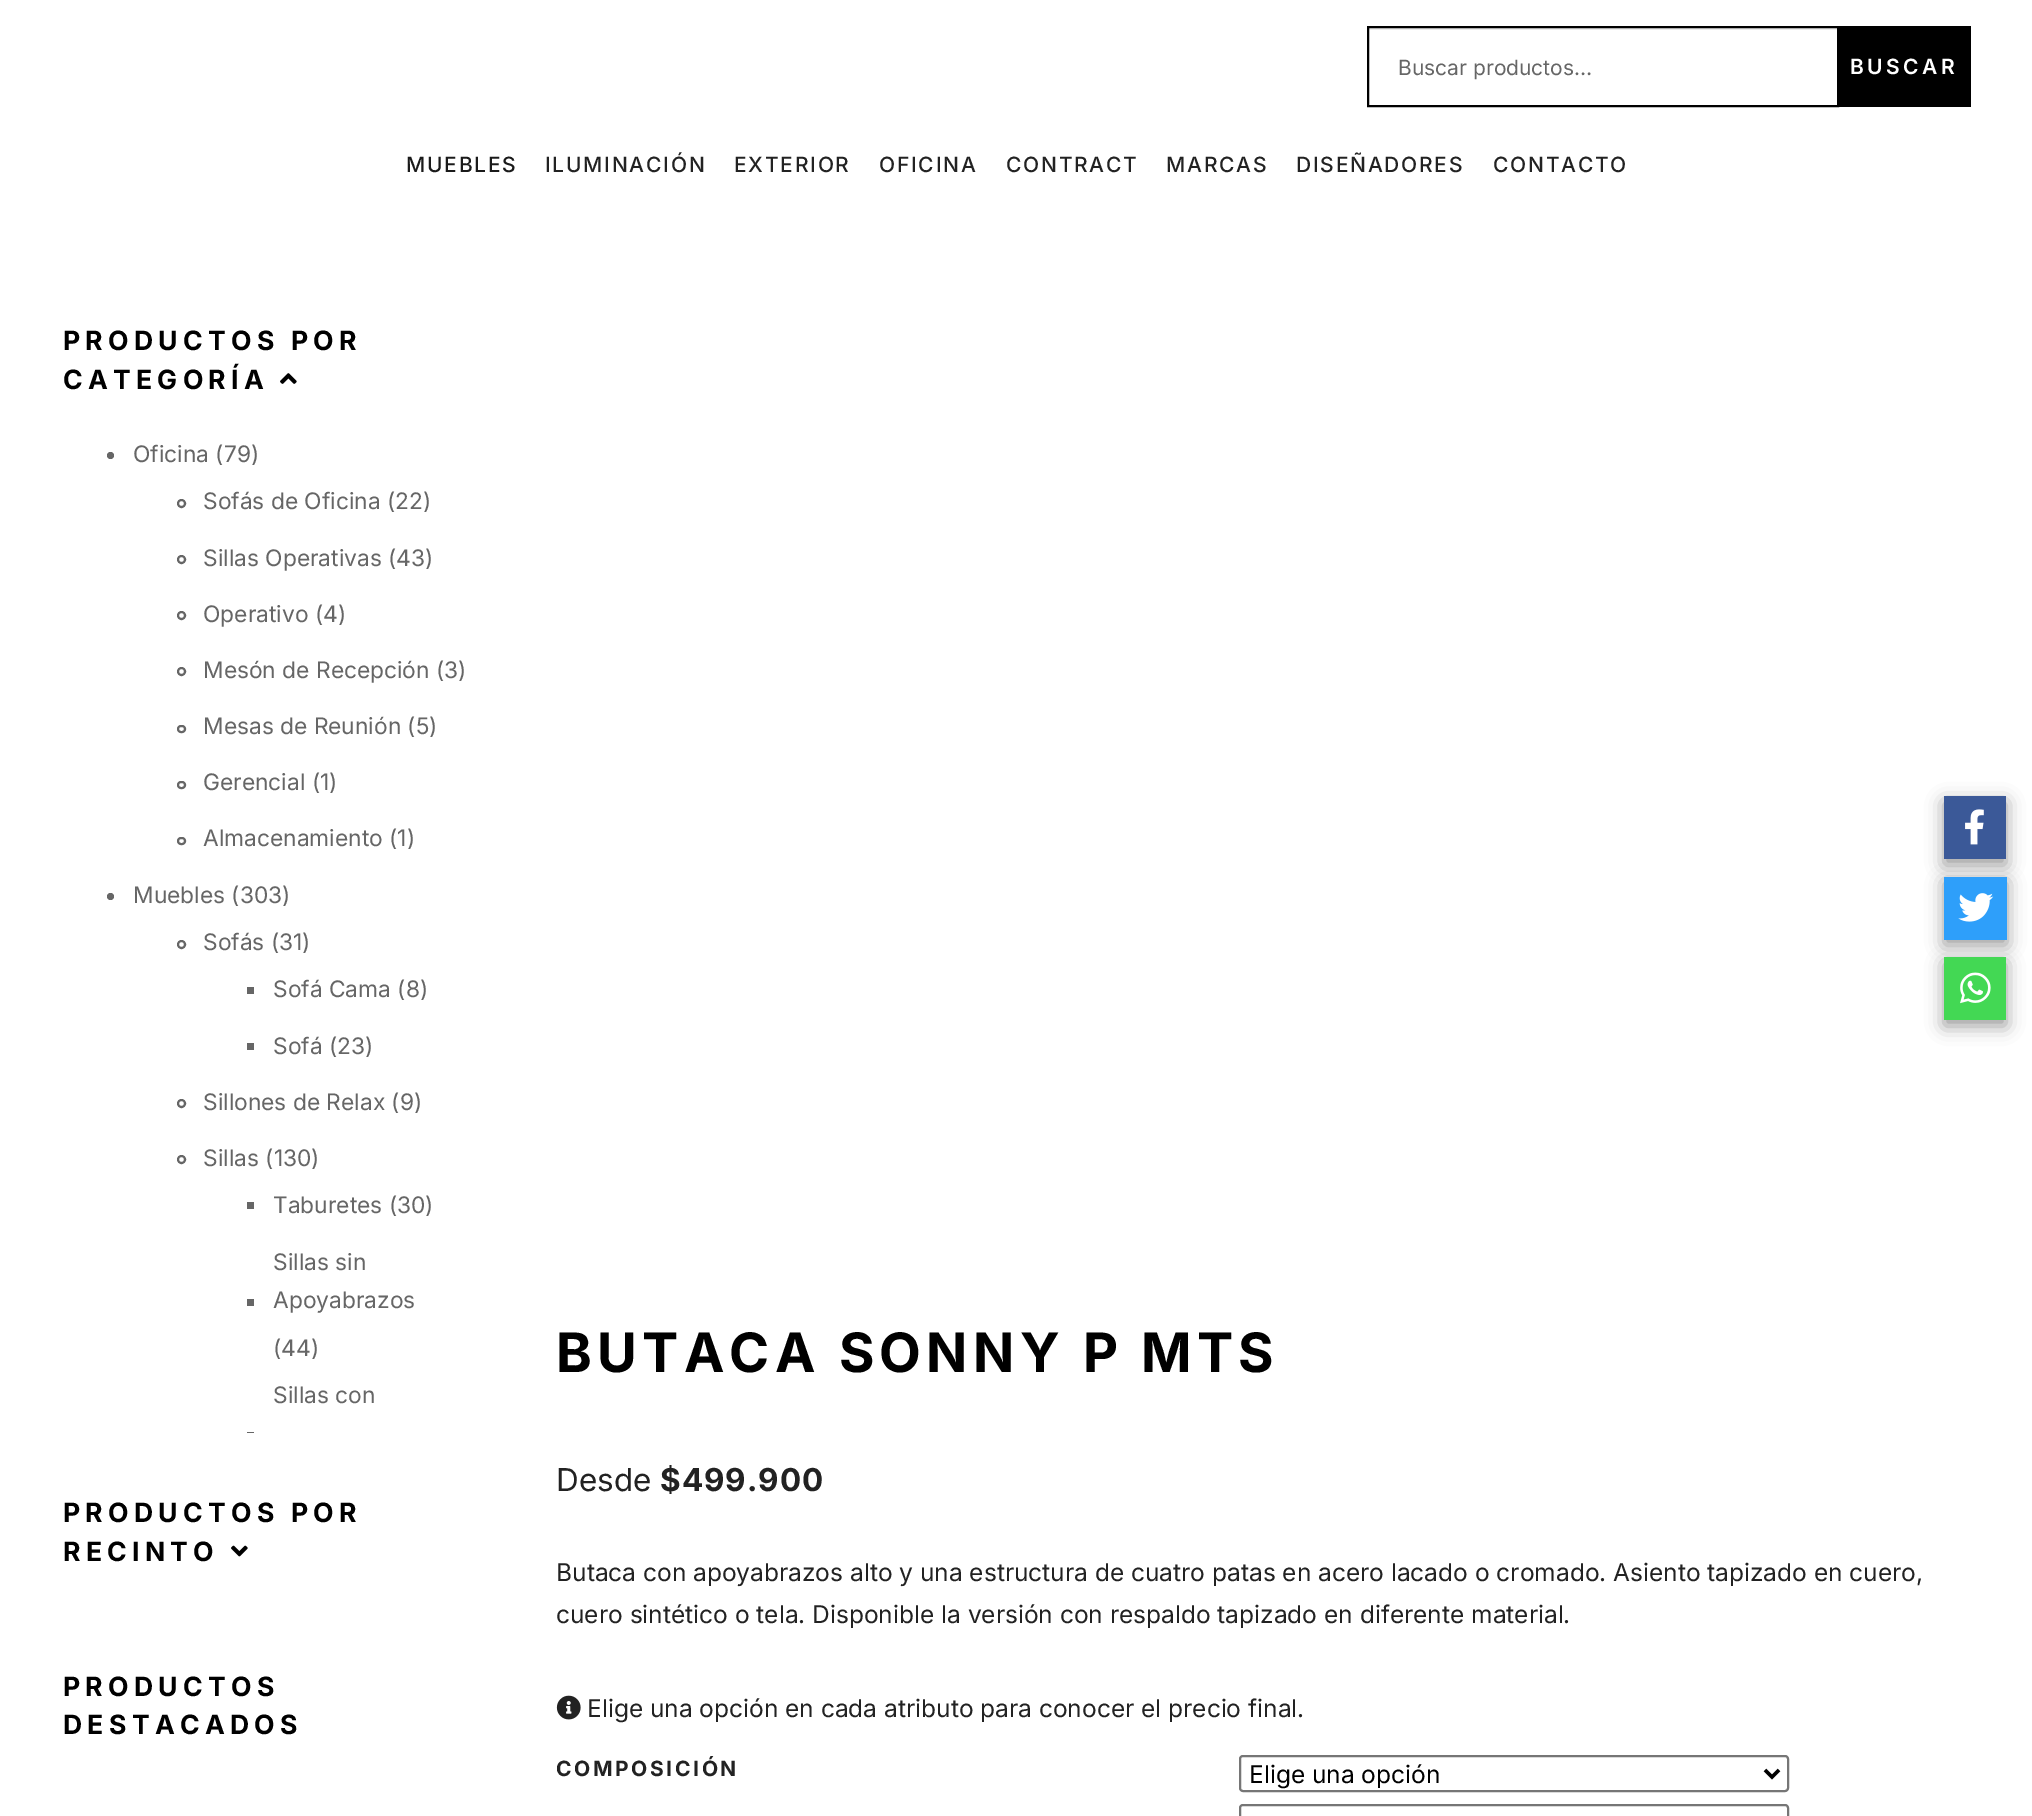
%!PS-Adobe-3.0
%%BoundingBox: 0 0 2032 1816
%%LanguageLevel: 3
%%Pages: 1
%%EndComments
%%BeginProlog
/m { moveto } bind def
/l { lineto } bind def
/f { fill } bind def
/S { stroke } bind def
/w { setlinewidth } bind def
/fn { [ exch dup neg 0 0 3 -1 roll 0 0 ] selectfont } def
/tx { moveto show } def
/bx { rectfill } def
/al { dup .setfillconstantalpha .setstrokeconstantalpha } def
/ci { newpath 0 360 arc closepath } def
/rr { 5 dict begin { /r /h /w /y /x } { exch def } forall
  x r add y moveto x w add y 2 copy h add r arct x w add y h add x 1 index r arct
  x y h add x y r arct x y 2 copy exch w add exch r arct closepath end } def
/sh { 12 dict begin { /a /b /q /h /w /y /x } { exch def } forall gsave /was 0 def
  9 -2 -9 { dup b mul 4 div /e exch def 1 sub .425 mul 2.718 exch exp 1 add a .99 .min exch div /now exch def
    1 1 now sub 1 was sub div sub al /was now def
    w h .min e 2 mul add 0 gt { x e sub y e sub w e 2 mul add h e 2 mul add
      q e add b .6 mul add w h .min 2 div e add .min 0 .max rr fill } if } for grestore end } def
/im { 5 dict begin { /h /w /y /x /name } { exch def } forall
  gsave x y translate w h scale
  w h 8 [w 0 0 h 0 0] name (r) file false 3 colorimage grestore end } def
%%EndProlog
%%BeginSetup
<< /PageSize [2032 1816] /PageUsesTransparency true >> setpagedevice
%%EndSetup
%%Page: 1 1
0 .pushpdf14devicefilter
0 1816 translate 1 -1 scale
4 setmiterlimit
1 setgray
0 0 2032 1816 bx
0.925 setgray
1369 28 469 2 bx
0 setgray
2 w
1368 27 470 79 rectstroke
/Inter-Regular 21 fn
0.4 setgray
(Buscar productos…) 1398 75 tx
0 setgray
1839 26 132 81 bx
/Inter-SemiBold 21 fn
1 setgray
1850 74 m 3.5 0 (BUSCAR) ashow
/Inter-Medium 21 fn
0.102 setgray
406 172 m 1.75 0 (MUEBLES) ashow
0.133 setgray
545 172 m 1.75 0 (ILUMINACIÓN) ashow
734 172 m 1.75 0 (EXTERIOR) ashow
879 172 m 1.75 0 (OFICINA) ashow
1006 172 m 1.75 0 (CONTRACT) ashow
1166 172 m 1.75 0 (MARCAS) ashow
1296 172 m 1.75 0 (DISEÑADORES) ashow
1493 172 m 1.75 0 (CONTACTO) ashow
/Inter-Bold 26.6 fn
0 setgray
63 350 m 5.25 0 (PRODUCTOS POR) ashow
63 389 m 5.25 0 (CATEGORÍA) ashow
(image0.raw) 280 373 17 11 im
0.4 setgray
110.5 455.5 3.5 ci f
/Inter-Regular 22.75 fn
(Oficina \(79\)) 133 462 tx
181.5 503.5 3.5 ci S
(Sofás de Oficina \(22\)) 203 509 tx
181.5 559.5 3.5 ci S
(Sillas Operativas \(43\)) 203 566 tx
181.5 615.5 3.5 ci S
(Operativo \(4\)) 203 622 tx
181.5 671.5 3.5 ci S
(Mesón de Recepción \(3\)) 203 678 tx
178 726 7 6 3 rr S
(Mesas de Reunión \(5\)) 203 734 tx
178 782 7 6 3 rr S
(Gerencial \(1\)) 203 790 tx
178 838 7 6 3 rr S
(Almacenamiento \(1\)) 203 846 tx
110.5 896.5 3.5 ci f
(Muebles \(303\)) 133 903 tx
181.5 944.5 3.5 ci S
(Sofás \(31\)) 203 950 tx
247 987 7 7 bx
(Sofá Cama \(8\)) 273 997 tx
247 1043 7 7 bx
(Sofá \(23\)) 273 1054 tx
181.5 1103.5 3.5 ci S
(Sillones de Relax \(9\)) 203 1110 tx
181.5 1159.5 3.5 ci S
(Sillas \(130\)) 203 1166 tx
247 1202 7 7 bx
(Taburetes \(30\)) 273 1213 tx
247 1299 7 7 bx
(Sillas sin) 273 1270 tx
(Apoyabrazos) 273 1308 tx
(\(44\)) 273 1356 tx
(Sillas con) 273 1403 tx
247 1432 7 1 bx
/Inter-Bold 26.6 fn
0 setgray
63 1522 m 5.25 0 (PRODUCTOS POR) ashow
63 1561 m 5.25 0 (RECINTO) ashow
(image1.raw) 231 1545 17 12 im
63 1696 m 5.25 0 (PRODUCTOS) ashow
63 1734 m 5.25 0 (DESTACADOS) ashow
/Inter-Bold 54.25 fn
556 1372 m 5.25 0 (BUTACA SONNY P MTS) ashow
/Inter-Regular 31.5 fn
0.133 setgray
(Desde) 556 1491 tx
/Inter-Bold 31.5 fn
660 1491 m 1 0 ($499.900) ashow
/Inter-Regular 24.5 fn
(Butaca con apoyabrazos alto y una estructura de cuatro patas en acero lacado o cromado. Asiento tapizado en cuero,) 556 1581 tx
(cuero sintético o tela. Disponible la versión con respaldo tapizado en diferente material.) 556 1623 tx
(image2.raw) 556 1695 25 25 im
(Elige una opción en cada atributo para conocer el precio final.) 587 1717 tx
/Inter-Bold 21 fn
556 1776 m 2.6 0 (COMPOSICIÓN) ashow
0.463 setgray
1240 1756 548 35 3 rr S
0 setgray
3.5 w
1765 1770 m 1772 1777 l 1779 1770 l S
/Inter-Regular 24.5 fn
(Elige una opción) 1249 1783 tx
0.463 setgray
2 w
1240 1805 548 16 3 rr S
0 setgray
1944 802 62 63 0 9 0.4 sh
0.231 0.349 0.596 setrgbcolor
1944 796 62 63 bx
(image3.raw) 1965 809 19 36 im
0 setgray
1944 882 63 63 0 9 0.4 sh
0.18 0.624 0.98 setrgbcolor
1944 877 63 63 bx
(image4.raw) 1958 893 36 29 im
0 setgray
1944 963 62 63 0 9 0.4 sh
0.263 0.847 0.329 setrgbcolor
1944 957 62 63 bx
(image5.raw) 1960 972 31 32 im
.poppdf14devicefilter showpage
%%EOF
